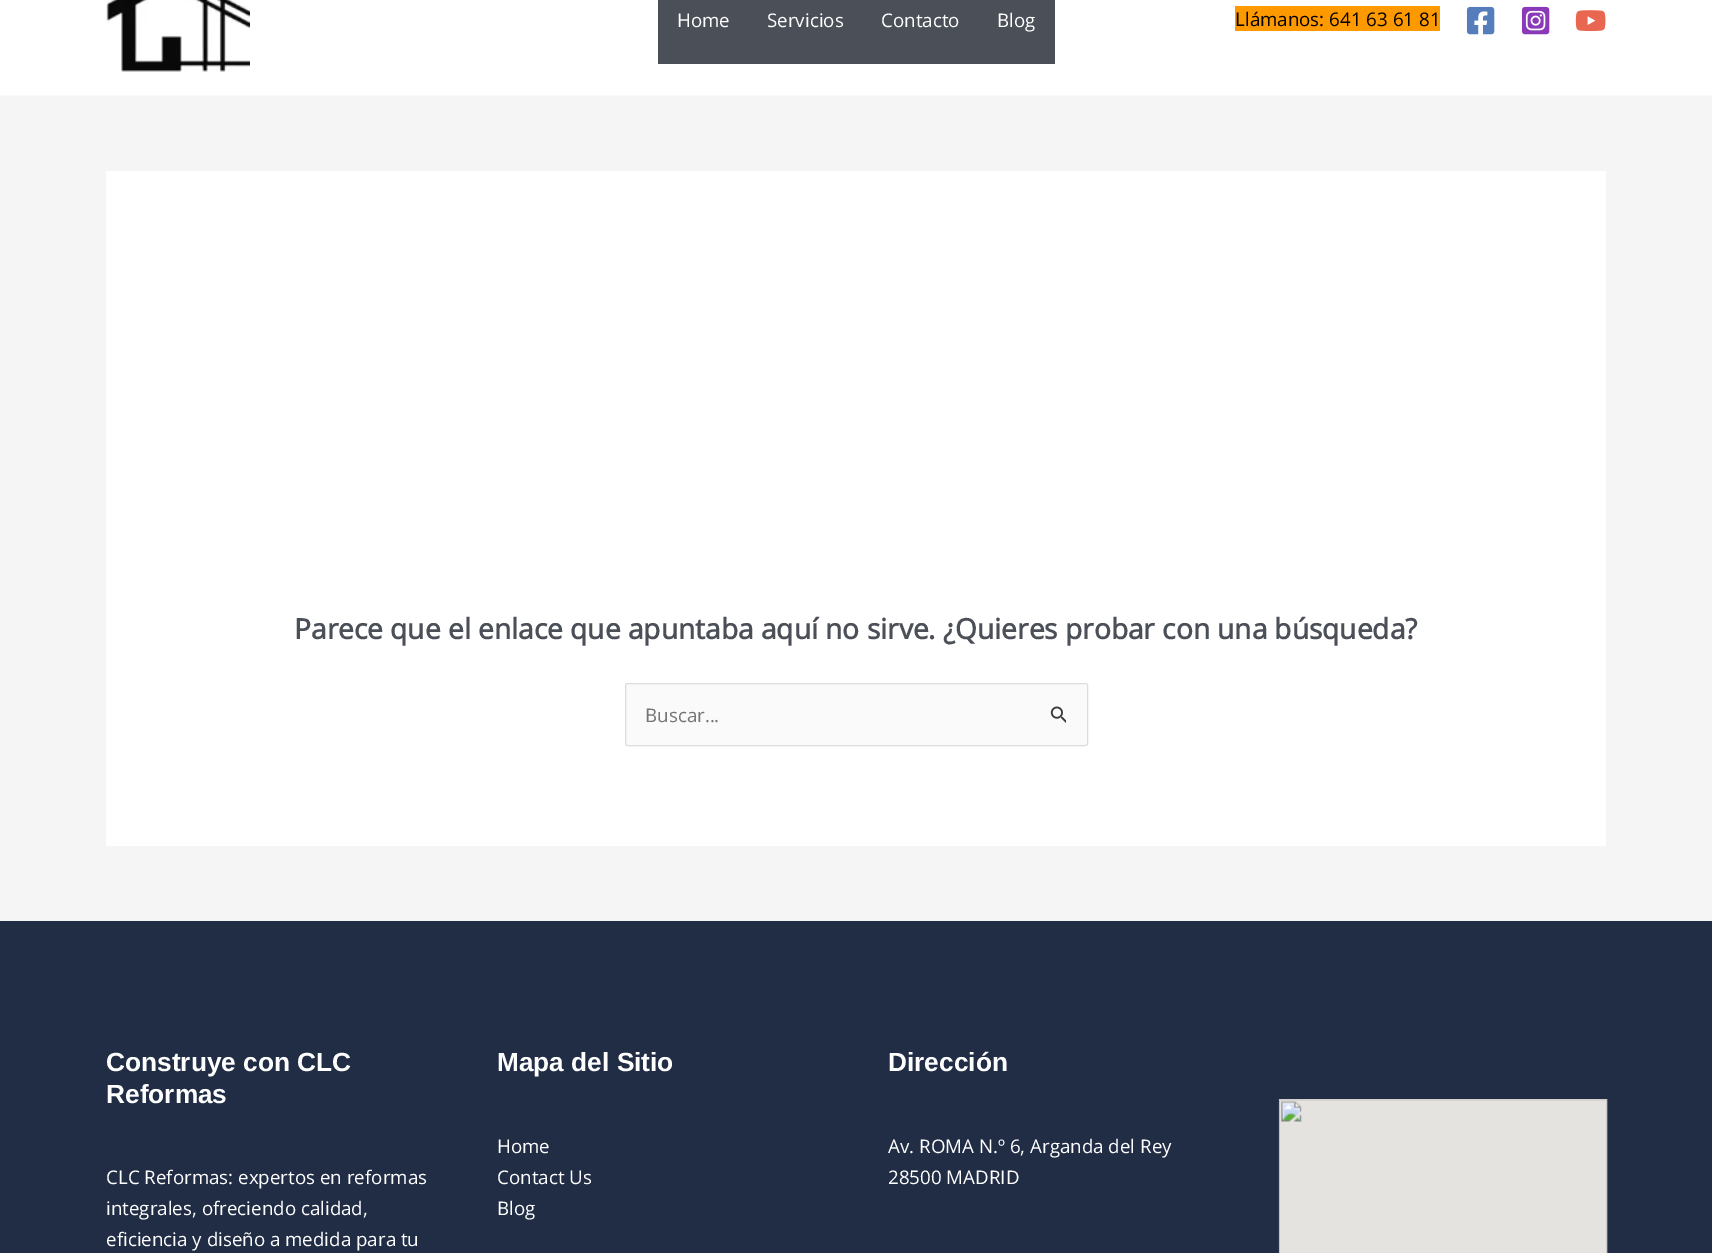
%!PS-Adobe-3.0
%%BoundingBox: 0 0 1712 1253
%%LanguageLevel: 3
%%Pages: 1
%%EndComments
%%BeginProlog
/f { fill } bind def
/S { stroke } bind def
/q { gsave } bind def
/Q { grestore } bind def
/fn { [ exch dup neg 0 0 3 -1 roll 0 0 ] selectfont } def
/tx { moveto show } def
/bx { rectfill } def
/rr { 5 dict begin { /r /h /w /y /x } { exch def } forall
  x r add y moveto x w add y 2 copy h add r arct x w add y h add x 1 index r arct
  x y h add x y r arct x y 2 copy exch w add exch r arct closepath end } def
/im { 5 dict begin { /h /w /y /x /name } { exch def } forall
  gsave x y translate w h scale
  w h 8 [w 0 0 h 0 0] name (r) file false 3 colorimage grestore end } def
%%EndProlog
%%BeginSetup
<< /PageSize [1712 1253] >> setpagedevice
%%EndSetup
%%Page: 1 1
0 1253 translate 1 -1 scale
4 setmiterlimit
0.961 setgray
0 0 1712 1253 bx
1 setgray
0 0 1712 95 bx
0.98 setgray
0 95 1712 1 bx
(image0.raw) 106 0 144 73 im
0.294 0.31 0.345 setrgbcolor
658 0 397 64 bx
/OpenSans-Regular 18.75 fn
1 setgray
(Home) 677 27 tx
(Servicios) 767 27 tx
(Contacto) 881 27 tx
(Blog) 997 27 tx
1 0.6 0 setrgbcolor
1235 6 205 25 bx
0 setgray
(Llámanos: 641 63 61 81) 1235 26 tx
(image1.raw) 1466 6 29 29 im
(image2.raw) 1521 6 29 29 im
(image3.raw) 1575 10 31 22 im
1 setgray
106 171 1500 675 bx
/OpenSans-Bold 28.1 fn
0.294 0.31 0.345 setrgbcolor
(Parece que el enlace que apuntaba aquí no sirve. ¿Quieres probar con una búsqueda?) 294 639 tx
0.98 setgray
625.5 683.5 462 62 2 rr q f Q
0.867 setgray
S
/OpenSans-Regular 18.75 fn
0.459 setgray
(Buscar...) 645 722 tx
(image4.raw) 1050 706 16 17 im
0.129 0.176 0.271 setrgbcolor
0 921 1712 332 bx
/LiberationSans-Bold 26.25 fn
1 setgray
(Construye con CLC) 106 1071 tx
(Reformas) 106 1103 tx
/OpenSans-Regular 18.75 fn
(CLC Reformas: expertos en reformas) 106 1184 tx
(integrales, ofreciendo calidad,) 106 1215 tx
(eficiencia y diseño a medida para tu) 106 1246 tx
/LiberationSans-Bold 26.25 fn
(Mapa del Sitio) 497 1071 tx
/OpenSans-Regular 18.75 fn
(Home) 497 1153 tx
(Contact Us) 497 1184 tx
(Blog) 497 1215 tx
/LiberationSans-Bold 26.25 fn
(Dirección) 888 1071 tx
/OpenSans-Regular 18.75 fn
(Av. ROMA N.º 6, Arganda del Rey) 888 1153 tx
(28500 MADRID) 888 1184 tx
(image5.raw) 1278 1099 330 154 im
showpage
%%EOF
